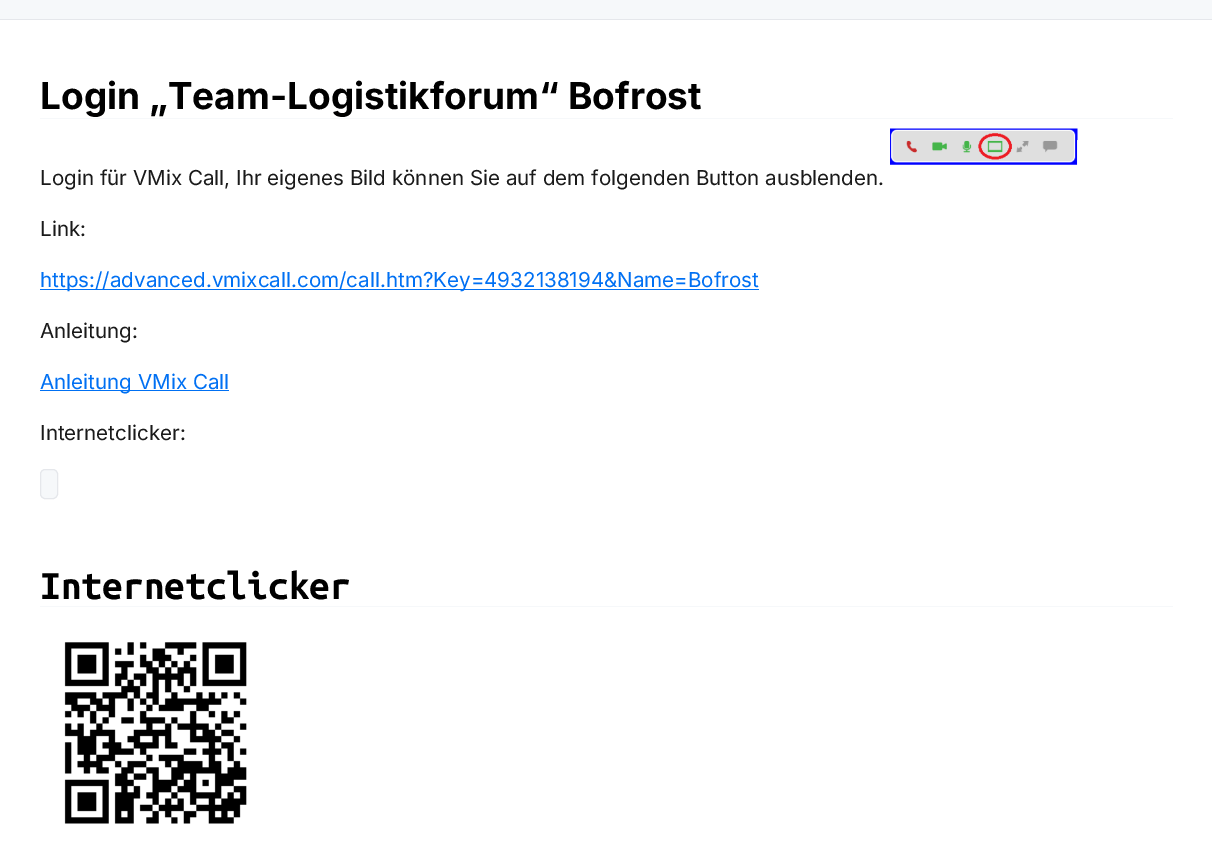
%!PS-Adobe-3.0
%%BoundingBox: 0 0 1212 864
%%LanguageLevel: 3
%%Pages: 1
%%EndComments
%%BeginProlog
/f { fill } bind def
/S { stroke } bind def
/q { gsave } bind def
/Q { grestore } bind def
/fn { [ exch dup neg 0 0 3 -1 roll 0 0 ] selectfont } def
/tx { moveto show } def
/bx { rectfill } def
/rr { 5 dict begin { /r /h /w /y /x } { exch def } forall
  x r add y moveto x w add y 2 copy h add r arct x w add y h add x 1 index r arct
  x y h add x y r arct x y 2 copy exch w add exch r arct closepath end } def
/im { 5 dict begin { /h /w /y /x /name } { exch def } forall
  gsave x y translate w h scale
  w h 8 [w 0 0 h 0 0] name (r) file false 3 colorimage grestore end } def
%%EndProlog
%%BeginSetup
<< /PageSize [1212 864] >> setpagedevice
%%EndSetup
%%Page: 1 1
0 864 translate 1 -1 scale
4 setmiterlimit
1 setgray
0 0 1212 864 bx
0.965 0.973 0.98 setrgbcolor
0 0 1212 19 bx
0.898 0.906 0.922 setrgbcolor
0 19 1212 1 bx
0.965 0.973 0.98 setrgbcolor
40 118 1133 1 bx
/Inter-Bold 37 fn
0 setgray
(Login „Team-Logistikforum“ Bofrost) 40 109 tx
(image0.raw) 890 128 188 37 im
/Inter-Regular 20.6 fn
0.102 setgray
(Login für VMix Call, Ihr eigenes Bild können Sie auf dem folgenden Button ausblenden.) 40 185 tx
(Link:) 40 236 tx
0 0.439 0.953 setrgbcolor
40 289 719 1 bx
(https://advanced.vmixcall.com/call.htm?Key=4932138194&Name=Bofrost) 40 287 tx
0.102 setgray
(Anleitung:) 40 338 tx
0 0.439 0.953 setrgbcolor
40 390 189 1 bx
(Anleitung VMix Call) 40 389 tx
0.102 setgray
(Internetclicker:) 40 440 tx
0.965 0.973 0.98 setrgbcolor
40.5 469.5 17 29 4.5 rr q f Q
0.898 0.906 0.922 setrgbcolor
S
0.965 0.973 0.98 setrgbcolor
40 606 1133 1 bx
/UbuntuMono-Bold 37 fn
0 setgray
(Internetclicker) 40 599 tx
(image1.raw) 64 642 183 182 im
showpage
%%EOF
